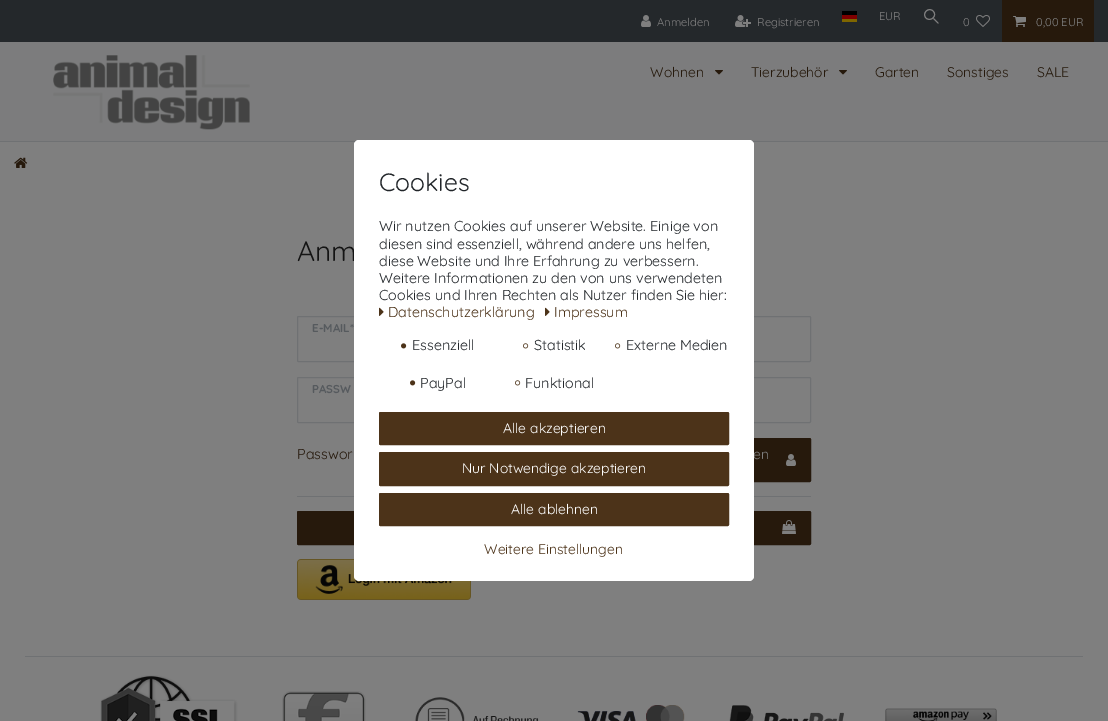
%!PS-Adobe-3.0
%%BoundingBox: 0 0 1108 721
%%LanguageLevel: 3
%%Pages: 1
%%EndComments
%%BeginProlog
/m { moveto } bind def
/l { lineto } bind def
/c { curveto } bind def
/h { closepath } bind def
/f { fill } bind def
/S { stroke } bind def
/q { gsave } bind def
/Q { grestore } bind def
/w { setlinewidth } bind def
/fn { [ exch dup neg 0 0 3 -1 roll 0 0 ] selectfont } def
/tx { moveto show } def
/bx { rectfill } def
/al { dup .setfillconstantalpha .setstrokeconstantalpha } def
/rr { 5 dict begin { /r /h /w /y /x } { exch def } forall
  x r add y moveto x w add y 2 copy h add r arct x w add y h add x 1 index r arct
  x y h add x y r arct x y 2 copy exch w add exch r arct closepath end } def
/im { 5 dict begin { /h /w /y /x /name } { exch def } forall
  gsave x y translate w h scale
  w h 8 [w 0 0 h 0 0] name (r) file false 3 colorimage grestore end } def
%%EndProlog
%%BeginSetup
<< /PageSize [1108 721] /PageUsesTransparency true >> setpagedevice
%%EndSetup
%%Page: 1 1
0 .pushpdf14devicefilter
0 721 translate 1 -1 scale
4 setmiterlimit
1 setgray
0 0 1108 721 bx
0.286 0.314 0.341 setrgbcolor
0 0 1108 42 bx
(image0.raw) 641 15 10 12 im
/Quicksand-Regular 11.25 fn
1 setgray
(Anmelden) 657 26 tx
(image1.raw) 735 15 16 12 im
(Registrieren) 757 26 tx
1 0.8 0 setrgbcolor
842 19 15 3 bx
0 setgray
842 11 15 4 bx
1 0 0 setrgbcolor
842 15 15 4 bx
1 setgray
(EUR) 879 20 tx
938 23.5 m 936.5 22 927.5 13.5 928 13 c 928.5 12.5 l 938.5 23 l 939 23.5 938 23.5 938 23.5 c h f
0.286 0.314 0.341 setrgbcolor
925.5 18.5 m 920.5 13.5 928.5 5.5 933.5 10.5 c 938.5 15.5 931 23.5 925.5 18.5 c h f
1 setgray
926 18 m 921.5 13.5 928.5 6.5 933 11 c 938 15.5 930.5 22.5 926 18 c h S
(0) 963 26 tx
(image2.raw) 976 15 14 12 im
0.298 0.2 0.098 setrgbcolor
1002 0 92 42 bx
(image3.raw) 1013 16 13 11 im
1 setgray
(0,00 EUR) 1036 26 tx
0.973 0.976 0.98 setrgbcolor
0 42 1108 99 bx
0.871 0.886 0.902 setrgbcolor
0 141 1108 1 bx
(image4.raw) 53 55 197 75 im
/Quicksand-Regular 14 fn
0.298 0.2 0.098 setrgbcolor
(Wohnen) 650 77 tx
(image5.raw) 715 70 8 5 im
(Tierzubehör) 751 77 tx
(image5.raw) 839 70 8 5 im
(Garten) 875 77 tx
(Sonstiges) 947 77 tx
(SALE) 1037 77 tx
(image6.raw) 14 157 14 11 im
/Quicksand-Regular 28 fn
0.157 setgray
(Anm) 297 261 tx
0.871 0.886 0.902 setrgbcolor
297.5 316.5 513 45 1 rr S
/Quicksand-Bold 11.5 fn
0.678 0.71 0.741 setrgbcolor
(E-MAIL*) 312 332 tx
0.871 0.886 0.902 setrgbcolor
297.5 377.5 513 45 1 rr S
0.678 0.71 0.741 setrgbcolor
(PASSW) 312 393 tx
/Quicksand-Regular 14.4 fn
0.298 0.2 0.098 setrgbcolor
(Passwor) 297 459 tx
671.5 438.5 139 43 1 rr q f Q
S
/Quicksand-Regular 14 fn
1 setgray
(en) 753 459 tx
(image7.raw) 786 454 10 12 im
0.871 0.886 0.902 setrgbcolor
297 496 514 1 bx
0.298 0.2 0.098 setrgbcolor
297.5 511.5 241 33 1 rr q f Q
S
569.5 511.5 241 33 1 rr q f Q
S
(image8.raw) 782 520 14 14 im
(image9.raw) 297 559 174 41 im
0.871 0.886 0.902 setrgbcolor
25 656 1058 1 bx
(image10.raw) 100 675 138 46 im
(image11.raw) 282 691 84 30 im
(image12.raw) 415 697 124 24 im
(image13.raw) 577 705 108 16 im
(image14.raw) 729 705 115 16 im
(image15.raw) 885 708 112 13 im
0.5 al
0 setgray
1829 w
-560.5 -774.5 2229 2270 919.5 rr S
1 al
1 setgray
354 140 400 441 5 rr f
/Quicksand-Regular 25 fn
0.129 0.145 0.161 setrgbcolor
(Cookies) 379 191 tx
/Quicksand-Regular 14.4 fn
(Wir nutzen Cookies auf unserer Website. Einige von) 379 231 tx
(diesen sind essenziell, während andere uns helfen,) 379 249 tx
(diese Website und Ihre Erfahrung zu verbessern.) 379 266 tx
(Weitere Informationen zu den von uns verwendeten) 379 283 tx
(Cookies und Ihren Rechten als Nutzer finden Sie hier:) 379 300 tx
(image16.raw) 379 307 5 9 im
0.298 0.2 0.098 setrgbcolor
(Datenschutzerklärung) 388 317 tx
(image16.raw) 545 307 5 9 im
(Impressum) 554 317 tx
(image17.raw) 401 343 6 6 im
0.129 0.145 0.161 setrgbcolor
(Essenziell) 412 350 tx
(image18.raw) 523 343 6 6 im
(Statistik) 534 350 tx
(image18.raw) 615 343 6 6 im
(Externe Medien) 626 350 tx
(image17.raw) 410 380 6 6 im
(PayPal) 420 388 tx
(image18.raw) 515 380 6 6 im
(Funktional) 525 388 tx
0.298 0.2 0.098 setrgbcolor
379.5 412.5 349 32 1 rr q f Q
1 w
S
/Quicksand-Regular 14 fn
1 setgray
(Alle akzeptieren) 503 433 tx
0.298 0.2 0.098 setrgbcolor
379.5 452.5 349 33 1 rr q f Q
S
1 setgray
(Nur Notwendige akzeptieren) 462 473 tx
0.298 0.2 0.098 setrgbcolor
379.5 493.5 349 32 1 rr q f Q
S
1 setgray
(Alle ablehnen) 511 514 tx
0.298 0.2 0.098 setrgbcolor
(Weitere Einstellungen) 484 554 tx
.poppdf14devicefilter showpage
%%EOF
